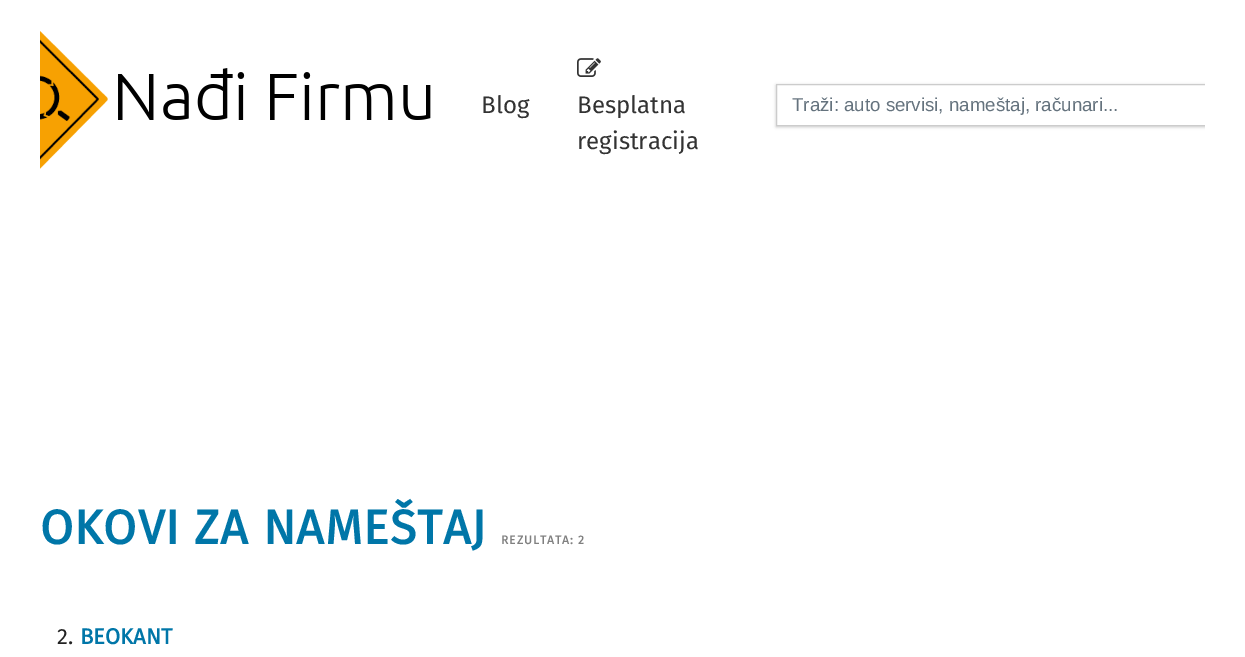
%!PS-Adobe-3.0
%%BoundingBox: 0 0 1245 657
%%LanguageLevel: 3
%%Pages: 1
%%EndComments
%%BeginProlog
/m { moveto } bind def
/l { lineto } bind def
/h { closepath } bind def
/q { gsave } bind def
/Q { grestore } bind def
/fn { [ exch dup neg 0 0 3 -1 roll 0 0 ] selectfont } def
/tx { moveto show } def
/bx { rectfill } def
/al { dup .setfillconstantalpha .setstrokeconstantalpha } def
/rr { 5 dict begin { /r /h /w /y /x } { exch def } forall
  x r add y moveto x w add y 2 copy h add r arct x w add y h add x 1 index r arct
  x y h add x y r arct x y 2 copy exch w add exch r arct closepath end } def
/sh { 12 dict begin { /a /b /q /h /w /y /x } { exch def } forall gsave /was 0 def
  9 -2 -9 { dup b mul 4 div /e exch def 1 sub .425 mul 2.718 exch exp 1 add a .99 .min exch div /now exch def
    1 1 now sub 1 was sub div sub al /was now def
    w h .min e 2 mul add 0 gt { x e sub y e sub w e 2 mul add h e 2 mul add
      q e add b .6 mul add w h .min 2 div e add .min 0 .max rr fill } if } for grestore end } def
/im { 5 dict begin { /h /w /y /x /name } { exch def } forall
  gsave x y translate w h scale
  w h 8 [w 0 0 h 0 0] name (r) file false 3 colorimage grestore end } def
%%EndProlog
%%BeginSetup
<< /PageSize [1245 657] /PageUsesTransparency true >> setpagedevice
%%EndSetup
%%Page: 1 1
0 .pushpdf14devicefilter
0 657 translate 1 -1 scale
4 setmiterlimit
1 setgray
0 0 1245 657 bx
(image0.raw) 40 31 391 138 im
/FiraSans-Regular 24 fn
0.2 setgray
(Blog) 481 113 tx
(image1.raw) 577 58 24 19 im
(Besplatna) 577 113 tx
(registracija) 577 149 tx
q
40 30 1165 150 rectclip
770 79 m 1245 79 l 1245 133 l 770 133 l h 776 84 m 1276 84 l 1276 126 l 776 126 l h eoclip newpath
0 setgray
776 85 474 42 0 1.5 0.2 sh
Q
q
40 30 1165 150 rectclip
0.8 setgray
776.5 84.5 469 41 rectstroke
Q
/LiberationSans-Regular 18.7 fn
0.396 0.451 0.494 setrgbcolor
(Traži: auto servisi, nameštaj, računari...) 792 111 tx
/FiraSans-Bold 48 fn
0 0.463 0.659 setrgbcolor
40 544 m 1 0 (OKOVI ZA NAMEŠTAJ) ashow
/FiraSans-Bold 12 fn
0.502 setgray
501 544 m 1 0 (REZULTATA: 2) ashow
/FiraSans-Regular 22 fn
0.133 setgray
(2.) 57 644 tx
/FiraSans-Bold 22 fn
0 0.463 0.659 setrgbcolor
(BEOKANT) 80 644 tx
.poppdf14devicefilter showpage
%%EOF
